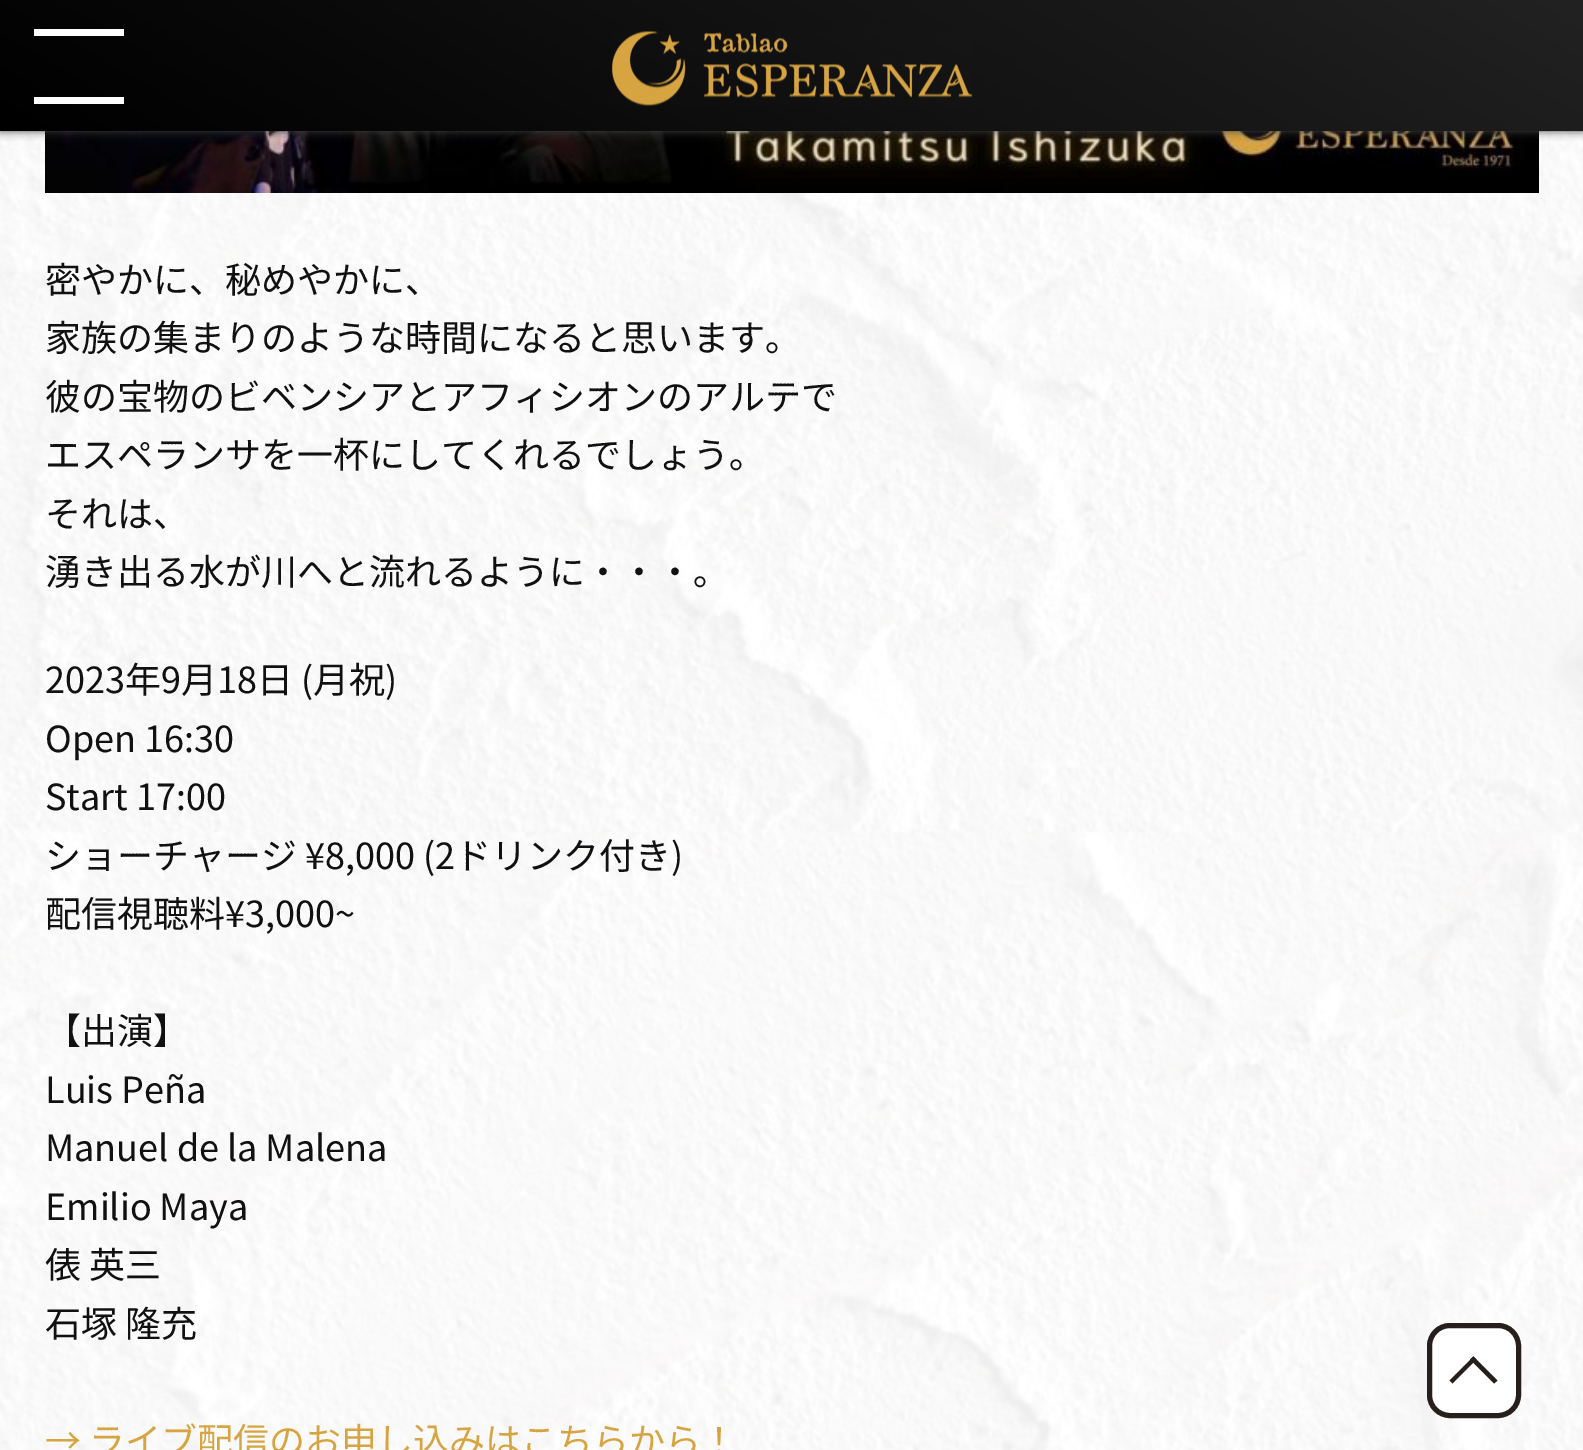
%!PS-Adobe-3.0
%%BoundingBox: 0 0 1583 1450
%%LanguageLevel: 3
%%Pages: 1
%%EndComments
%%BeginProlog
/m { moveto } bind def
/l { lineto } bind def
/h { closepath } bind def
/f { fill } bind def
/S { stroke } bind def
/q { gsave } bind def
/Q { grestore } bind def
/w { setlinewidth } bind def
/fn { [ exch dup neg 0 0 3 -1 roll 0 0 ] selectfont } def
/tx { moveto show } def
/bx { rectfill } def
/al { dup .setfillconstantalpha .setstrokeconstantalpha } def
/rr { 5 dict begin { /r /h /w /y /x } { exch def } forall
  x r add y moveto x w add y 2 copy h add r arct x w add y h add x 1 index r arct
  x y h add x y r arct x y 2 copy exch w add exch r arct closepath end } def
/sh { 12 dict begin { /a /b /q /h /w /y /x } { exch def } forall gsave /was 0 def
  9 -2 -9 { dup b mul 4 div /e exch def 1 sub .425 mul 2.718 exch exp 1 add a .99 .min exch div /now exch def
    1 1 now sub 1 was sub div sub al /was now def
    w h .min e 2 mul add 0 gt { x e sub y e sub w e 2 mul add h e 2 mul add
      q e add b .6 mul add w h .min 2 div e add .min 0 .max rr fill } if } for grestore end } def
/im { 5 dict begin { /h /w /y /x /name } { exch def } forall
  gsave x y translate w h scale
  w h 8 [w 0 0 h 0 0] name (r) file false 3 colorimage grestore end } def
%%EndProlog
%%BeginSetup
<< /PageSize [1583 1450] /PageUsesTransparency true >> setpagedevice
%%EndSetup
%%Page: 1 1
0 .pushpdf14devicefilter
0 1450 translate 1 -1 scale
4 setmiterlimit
1 setgray
0 0 1583 1450 bx
(image1.raw) 0 131 1583 1319 im
(image2.raw) 45 131 1494 62 im
0.267 setgray
0 0 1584 131 0 4.5 1 sh
q 0 0 m 1583 0 l 1583 131 l 0 131 l h clip newpath
<< /ShadingType 2 /ColorSpace /DeviceRGB /Coords [566 457 1018 -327] /Extend [true true] /Function << /FunctionType 2 /Domain [0 1] /C0 [0 0 0] /C1 [0.133 0.133 0.133] /N 1 >> >> shfill Q
1 setgray
34 29 90 7 bx
34 97 90 7 bx
(image0.raw) 612 31 360 75 im
/NotoSansJP-Thin 36 fn
0.067 setgray
(密やかに、秘めやかに、) 45 293 tx
(家族の集まりのような時間になると思います。) 45 351 tx
(彼の宝物のビベンシアとアフィシオンのアルテで) 45 410 tx
(エスペランサを一杯にしてくれるでしょう。) 45 468 tx
(それは、) 45 527 tx
(湧き出る水が川へと流れるように・・・。) 45 585 tx
(2023年9月18日 \(月祝\)) 45 693 tx
(Open 16:30) 45 752 tx
(Start 17:00) 45 810 tx
(ショーチャージ ¥8,000 \(2ドリンク付き\)) 45 869 tx
(配信視聴料¥3,000~) 45 927 tx
(【出演】) 45 1044 tx
(Luis Peña) 45 1103 tx
(Manuel de la Malena) 45 1161 tx
(Emilio Maya) 45 1220 tx
(俵 英三) 45 1278 tx
(石塚 隆充) 45 1337 tx
0.843 0.643 0.259 setrgbcolor
(→ ライブ配信のお申し込みはこちらから！) 45 1454 tx
1 setgray
1429.5 1325.5 89 90 20.5 rr q f Q
0.153 0.122 0.11 setrgbcolor
5 w
S
1449.5 1380.5 m 1473.5 1356.5 l 1476.5 1359.5 l 1452.5 1383.5 l h f
1470 1359.5 m 1473.5 1356.5 l 1497.5 1380.5 l 1494 1383.5 l h f
.poppdf14devicefilter showpage
%%EOF
